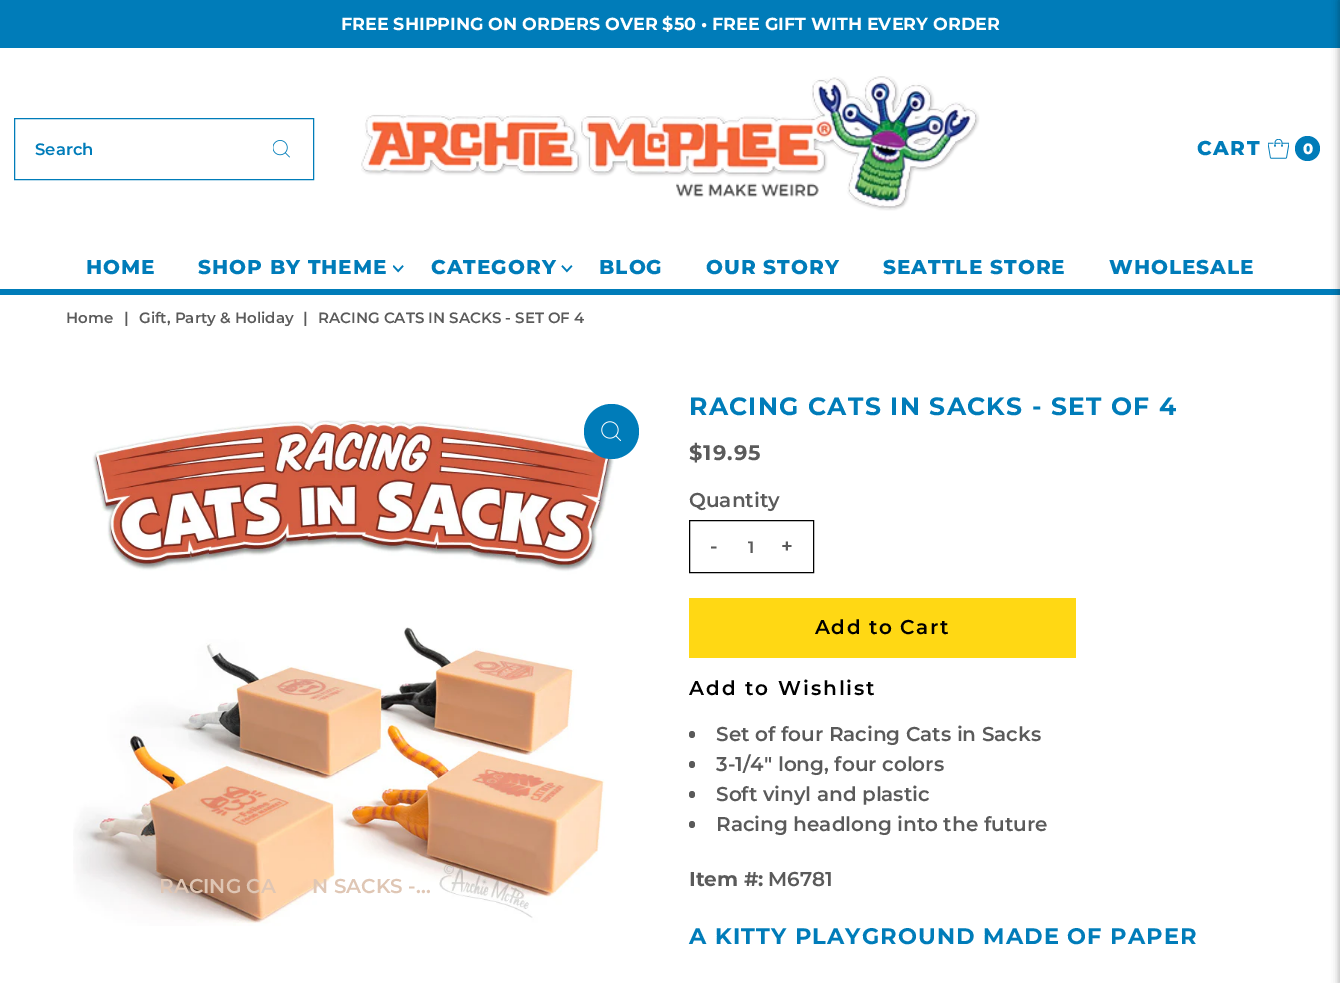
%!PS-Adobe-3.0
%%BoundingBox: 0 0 1340 983
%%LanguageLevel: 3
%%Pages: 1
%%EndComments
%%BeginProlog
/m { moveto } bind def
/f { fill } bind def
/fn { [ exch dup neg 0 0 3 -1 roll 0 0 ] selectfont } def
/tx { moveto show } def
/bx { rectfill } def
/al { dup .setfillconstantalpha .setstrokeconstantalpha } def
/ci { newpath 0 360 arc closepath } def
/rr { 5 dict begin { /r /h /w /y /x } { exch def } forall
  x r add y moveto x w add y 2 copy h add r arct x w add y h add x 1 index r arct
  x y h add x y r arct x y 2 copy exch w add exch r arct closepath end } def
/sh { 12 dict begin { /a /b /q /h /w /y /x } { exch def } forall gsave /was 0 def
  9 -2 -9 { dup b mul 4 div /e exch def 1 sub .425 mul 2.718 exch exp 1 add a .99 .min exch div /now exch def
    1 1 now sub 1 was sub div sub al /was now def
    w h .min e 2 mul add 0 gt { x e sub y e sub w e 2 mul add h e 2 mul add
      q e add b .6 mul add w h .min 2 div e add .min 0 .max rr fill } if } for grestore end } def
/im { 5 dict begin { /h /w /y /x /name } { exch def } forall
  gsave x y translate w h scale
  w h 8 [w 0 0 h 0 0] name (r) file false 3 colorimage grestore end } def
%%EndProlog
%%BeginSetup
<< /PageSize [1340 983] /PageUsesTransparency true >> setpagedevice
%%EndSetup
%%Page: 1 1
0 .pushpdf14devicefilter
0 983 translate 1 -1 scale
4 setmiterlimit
1 setgray
0 0 1340 983 bx
0 0.486 0.725 setrgbcolor
0 0 1340 48 bx
/Montserrat-Bold 17.5 fn
1 setgray
(FREE SHIPPING ON ORDERS OVER $50 • FREE GIFT WITH EVERY ORDER) 341 30 tx
0 0.486 0.725 setrgbcolor
14.5 118.5 299 61 rectstroke
/Montserrat-SemiBold 16.5 fn
(Search) 35 155 tx
(image0.raw) 273 140 17 18 im
(image1.raw) 361 76 619 135 im
/Montserrat-ExtraBold 20 fn
1197 155 m 1.5 0 (CART) ashow
(image2.raw) 1268 139 21 20 im
1307.5 148.5 12.5 ci f
/Montserrat-ExtraBold 15 fn
1 setgray
(0) 1303 154 tx
0 0.486 0.725 setrgbcolor
0 289 1340 6 bx
/Montserrat-ExtraBold 20 fn
86 274 m 1 0 (HOME) ashow
198 274 m 1 0 (SHOP BY THEME) ashow
(image3.raw) 393 265 11 8 im
431 274 m 1 0 (CATEGORY) ashow
(image4.raw) 561 265 12 8 im
599 274 m 1 0 (BLOG) ashow
706 274 m 1 0 (OUR STORY) ashow
883 274 m 1 0 (SEATTLE STORE) ashow
1109 274 m 1 0 (WHOLESALE) ashow
/Montserrat-SemiBold 15 fn
0.353 setgray
(Home) 66 323 tx
(|) 124 323 tx
(Gift, Party & Holiday) 139 323 tx
(|) 303 323 tx
(RACING CATS IN SACKS - SET OF 4) 318 323 tx
(image6.raw) 73 420 541 506 im
/Montserrat-SemiBold 20 fn
0.875 0.776 0.706 setrgbcolor
(RACING CA) 159 893 tx
(N SACKS -...) 312 893 tx
0 0.486 0.725 setrgbcolor
611.5 431.5 27.5 ci f
(image5.raw) 601 421 20 20 im
/Montserrat-Bold 25 fn
689 415 m 1.25 0 (RACING CATS IN SACKS - SET OF 4) ashow
/Montserrat-Bold 21 fn
0.353 setgray
689 460 m 1 0 ($19.95) ashow
/Montserrat-SemiBold 20 fn
(Quantity) 689 507 tx
0 setgray
689.5 520.5 124 52 rectstroke
0.353 setgray
710 553 m 1.5 0 (-) ashow
/Montserrat-SemiBold 16.5 fn
(1) 748 553 tx
/Montserrat-SemiBold 20 fn
781 553 m 1.5 0 (+) ashow
1 0.847 0.078 setrgbcolor
689 598 387 60 bx
0 setgray
815 634 m 1.5 0 (Add to Cart) ashow
689 695 m 2 0 (Add to Wishlist) ashow
0.353 setgray
689 731 6 7 3 rr f
(Set of four Racing Cats in Sacks) 716 741 tx
689 761 6 7 3 rr f
(3-1/4" long, four colors) 716 771 tx
689 791 6 7 3 rr f
(Soft vinyl and plastic) 716 801 tx
689 821 6 7 3 rr f
(Racing headlong into the future) 716 831 tx
/Montserrat-Bold 20 fn
(Item #:) 689 886 tx
/Montserrat-SemiBold 20 fn
(M6781) 768 886 tx
/Montserrat-Bold 22.5 fn
0 0.486 0.725 setrgbcolor
689 944 m 1.1 0 (A KITTY PLAYGROUND MADE OF PAPER) ashow
0 setgray
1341 0 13 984 0 4.5 0.5 sh
.poppdf14devicefilter showpage
%%EOF
